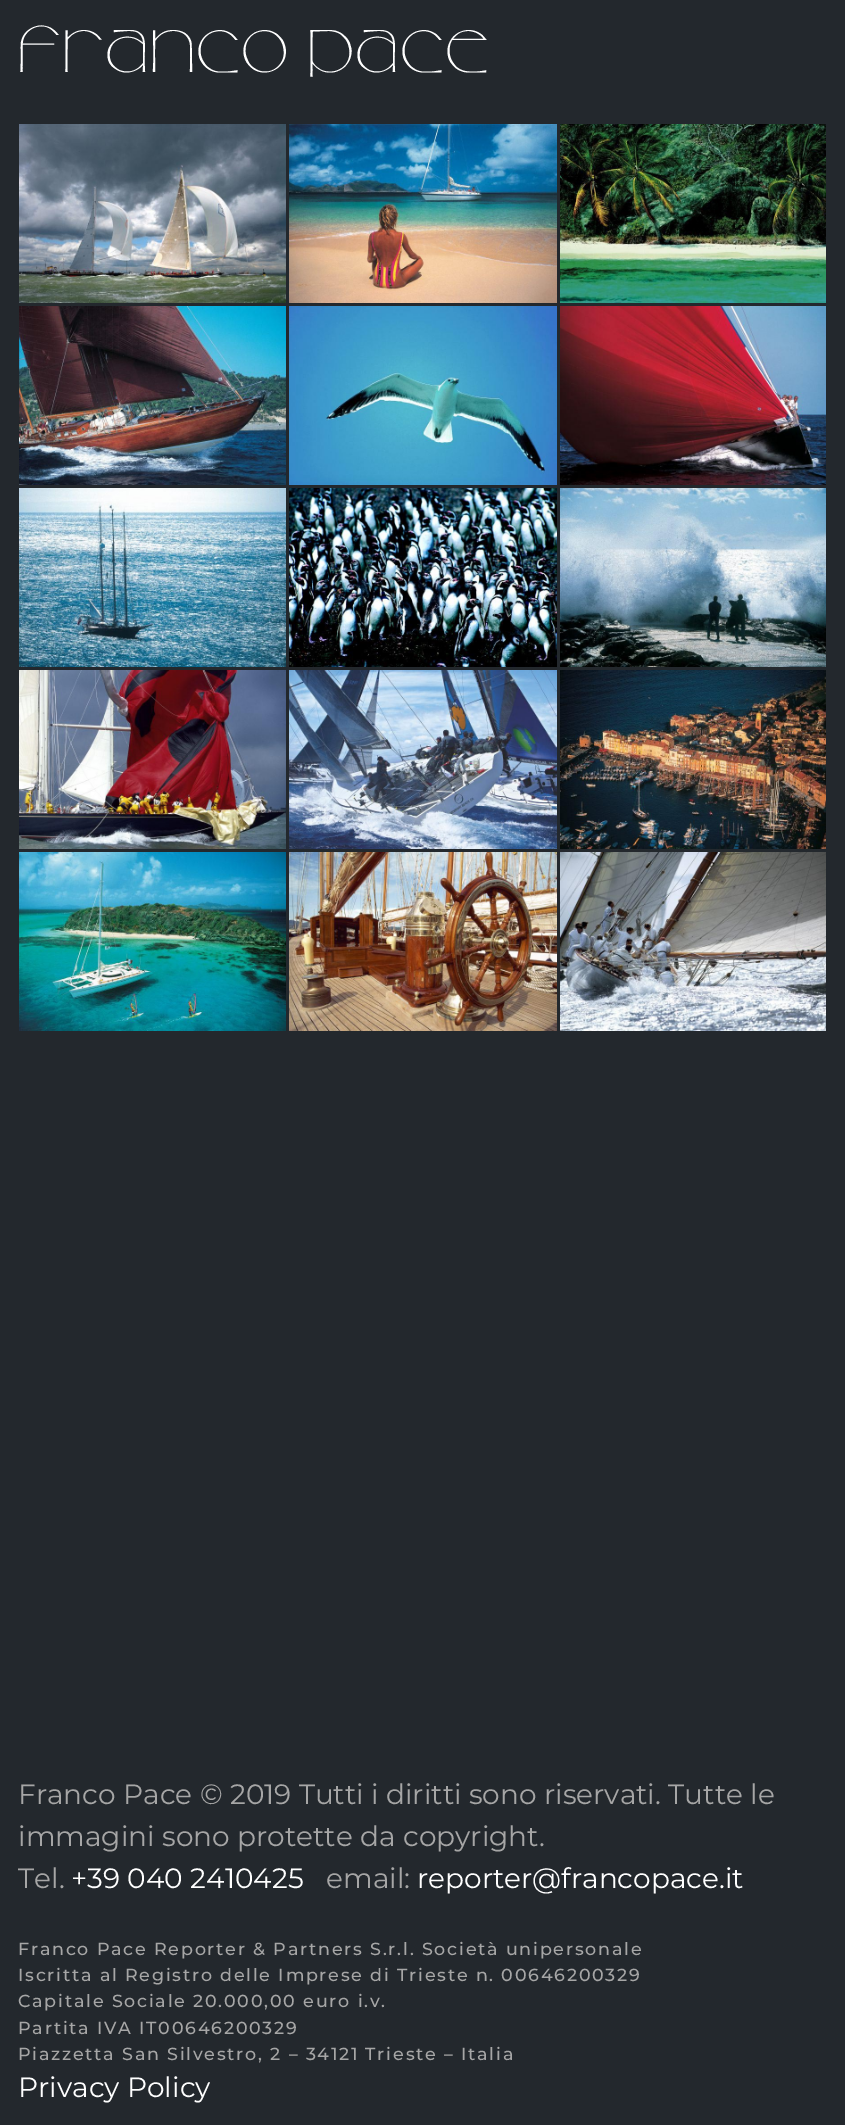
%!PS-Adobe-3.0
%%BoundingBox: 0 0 845 2125
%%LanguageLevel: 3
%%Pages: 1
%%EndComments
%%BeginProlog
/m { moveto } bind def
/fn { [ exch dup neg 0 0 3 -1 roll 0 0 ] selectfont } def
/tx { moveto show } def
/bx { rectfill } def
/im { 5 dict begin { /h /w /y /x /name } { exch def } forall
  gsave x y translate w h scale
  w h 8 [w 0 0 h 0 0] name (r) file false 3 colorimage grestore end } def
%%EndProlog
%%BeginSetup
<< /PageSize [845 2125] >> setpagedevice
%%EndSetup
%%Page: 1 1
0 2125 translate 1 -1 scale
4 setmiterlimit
0.137 0.157 0.176 setrgbcolor
0 0 845 2125 bx
/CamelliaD-Regular 70 fn
1 setgray
18 72 m 3.5 0 (Franco Pace) ashow
(image0.raw) 19 124 267 179 im
(image1.raw) 289 124 268 179 im
(image2.raw) 560 124 266 179 im
(image3.raw) 19 306 267 179 im
(image4.raw) 289 306 268 179 im
(image5.raw) 560 306 266 179 im
(image6.raw) 19 488 267 179 im
(image7.raw) 289 488 268 179 im
(image8.raw) 560 488 266 179 im
(image9.raw) 19 670 267 179 im
(image10.raw) 289 670 268 179 im
(image11.raw) 560 670 266 179 im
(image12.raw) 19 852 267 179 im
(image13.raw) 289 852 268 179 im
(image14.raw) 560 852 266 179 im
/Montserrat-Regular 28 fn
0.651 setgray
(Franco Pace © 2019 Tutti i diritti sono riservati. Tutte le) 18 1804 tx
(immagini sono protette da copyright.) 18 1846 tx
(Tel.) 18 1888 tx
1 setgray
(+39 040 2410425) 71 1888 tx
0.651 setgray
(email:) 326 1888 tx
1 setgray
(reporter@francopace.it) 417 1888 tx
/Montserrat-Medium 17.5 fn
0.651 setgray
18 1955 m 1.75 0 (Franco Pace Reporter & Partners S.r.l. Società unipersonale) ashow
18 1981 m 1.75 0 (Iscritta al Registro delle Imprese di Trieste n. 00646200329) ashow
18 2007 m 1.75 0 (Capitale Sociale 20.000,00 euro i.v.) ashow
18 2034 m 1.75 0 (Partita IVA IT00646200329) ashow
18 2060 m 1.75 0 (Piazzetta San Silvestro, 2 – 34121 Trieste – Italia) ashow
/Montserrat-Regular 28 fn
1 setgray
(Privacy Policy) 18 2097 tx
showpage
%%EOF
